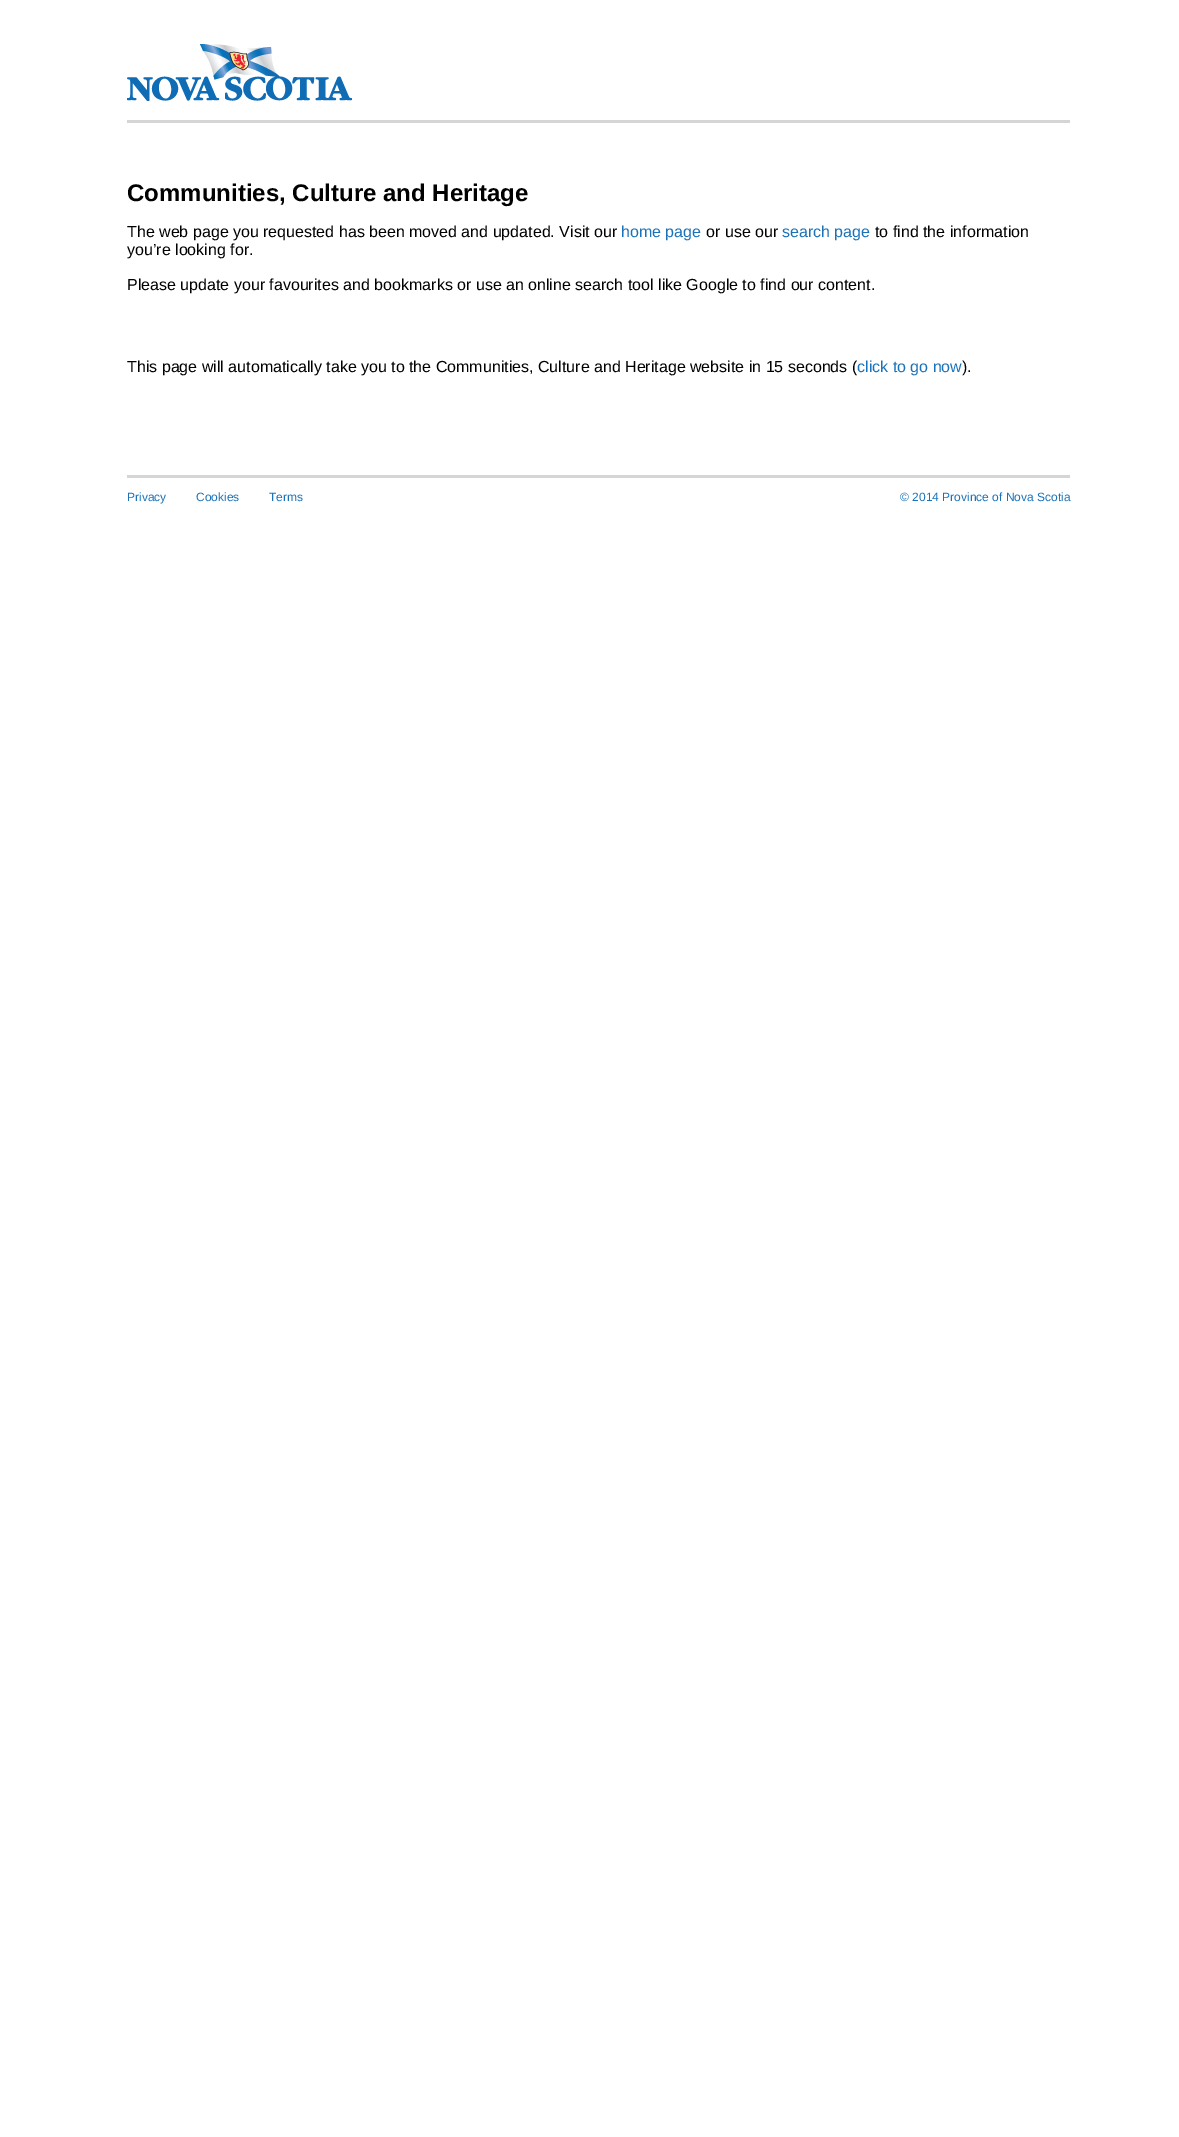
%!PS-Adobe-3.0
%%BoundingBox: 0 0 1179 2137
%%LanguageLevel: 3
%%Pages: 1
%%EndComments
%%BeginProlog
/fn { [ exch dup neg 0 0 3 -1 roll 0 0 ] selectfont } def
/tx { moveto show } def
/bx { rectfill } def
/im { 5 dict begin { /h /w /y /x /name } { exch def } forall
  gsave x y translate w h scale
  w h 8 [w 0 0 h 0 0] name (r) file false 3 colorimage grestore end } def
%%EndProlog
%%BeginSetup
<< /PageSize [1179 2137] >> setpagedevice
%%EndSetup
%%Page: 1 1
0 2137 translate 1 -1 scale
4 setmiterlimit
1 setgray
0 0 1179 2137 bx
(image0.raw) 127 44 225 57 im
0.835 setgray
127 120 943 3 bx
/LiberationSans-Bold 24 fn
0 setgray
(Communities, Culture and Heritage) 127 201 tx
/LiberationSans-Regular 16 fn
(The web page you requested has been moved and updated. Visit our) 127 237 tx
0.102 0.451 0.725 setrgbcolor
(home page) 621 237 tx
0 setgray
(or use our) 706 237 tx
0.102 0.451 0.725 setrgbcolor
(search page) 782 237 tx
0 setgray
(to find the information) 875 237 tx
(you’re looking for.) 127 255 tx
(Please update your favourites and bookmarks or use an online search tool like Google to find our content.) 127 290 tx
(This page will automatically take you to the Communities, Culture and Heritage website in 15 seconds \() 127 372 tx
0.102 0.451 0.725 setrgbcolor
(click to go now) 857 372 tx
0 setgray
(\).) 962 372 tx
0.835 setgray
127 475 943 3 bx
/LiberationSans-Regular 12 fn
0.102 0.451 0.725 setrgbcolor
(Privacy) 127 501 tx
(Cookies) 196 501 tx
(Terms) 269 501 tx
(© 2014 Province of Nova Scotia) 900 501 tx
showpage
%%EOF
